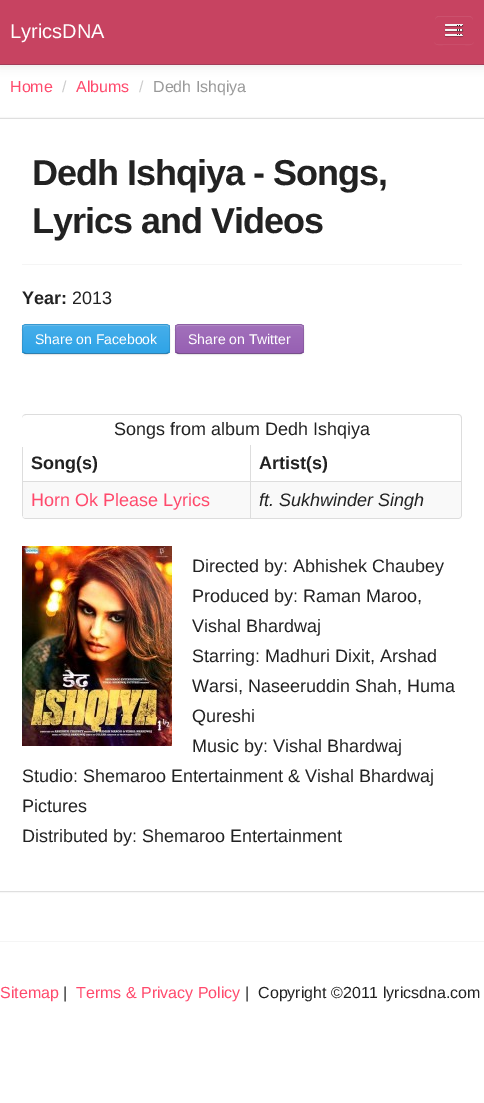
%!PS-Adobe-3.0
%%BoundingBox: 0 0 484 1103
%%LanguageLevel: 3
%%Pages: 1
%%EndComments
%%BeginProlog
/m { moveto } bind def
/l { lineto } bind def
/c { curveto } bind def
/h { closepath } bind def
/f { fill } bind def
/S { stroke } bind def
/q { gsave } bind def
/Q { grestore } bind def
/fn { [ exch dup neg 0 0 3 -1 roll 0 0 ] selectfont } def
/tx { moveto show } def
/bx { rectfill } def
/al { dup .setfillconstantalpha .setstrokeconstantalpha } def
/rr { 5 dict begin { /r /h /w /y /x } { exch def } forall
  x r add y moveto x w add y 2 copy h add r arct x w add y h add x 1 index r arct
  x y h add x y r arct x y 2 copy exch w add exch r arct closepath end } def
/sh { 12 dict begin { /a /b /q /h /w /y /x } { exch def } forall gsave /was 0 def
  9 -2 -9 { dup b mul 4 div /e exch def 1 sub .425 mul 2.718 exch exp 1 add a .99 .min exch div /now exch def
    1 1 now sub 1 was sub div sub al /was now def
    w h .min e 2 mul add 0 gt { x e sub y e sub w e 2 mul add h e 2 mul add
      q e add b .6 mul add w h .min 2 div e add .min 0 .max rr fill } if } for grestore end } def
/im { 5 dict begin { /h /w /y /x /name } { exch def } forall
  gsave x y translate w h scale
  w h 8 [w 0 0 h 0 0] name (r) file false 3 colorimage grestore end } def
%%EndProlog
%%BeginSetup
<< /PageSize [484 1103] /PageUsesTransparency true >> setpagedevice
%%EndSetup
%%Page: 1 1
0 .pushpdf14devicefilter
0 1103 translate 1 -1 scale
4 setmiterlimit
1 setgray
0 0 484 1103 bx
0 setgray
0 1 484 65 0 5 0.1 sh
0.78 0.263 0.38 setrgbcolor
0 0 484 64 bx
0.627 0.235 0.345 setrgbcolor
0 64 484 1 bx
/LiberationSans-Regular 20 fn
1 setgray
(LyricsDNA) 10 38 tx
0.796 0.318 0.427 setrgbcolor
434 40 m 434 46 439 45 443 45 c 465 45 l 469 45 474 46 474 40 c 474 42 472 44 470 44 c 438 44 l 436 44 434 42 434 40 c h f
0.78 0.263 0.38 setrgbcolor
434 15 40 29 4 rr f
0.804 0.337 0.443 setrgbcolor
438 17 m 470 17 l 472 17 473 18 473 20 c 473 15 469 16 464.5 16 c 443.5 16 l 439 16 435 15 435 20 c 435 18 436 17 438 17 c h f
0.78 0.263 0.38 setrgbcolor
434.5 15.5 39 28 3.5 rr S
0.584 0.196 0.286 setrgbcolor
445 25.5 m 444 27.5 448.5 27 448.5 27 c 459.5 27 l 459.5 27 464 27.5 463 25.5 c 462 26.5 455.5 26 454 26 c 452.5 26 446 26.5 445 25.5 c h f
0.961 setgray
445 24 18 2 1 rr f
(image0.raw) 457 25 6 1 im
0.584 0.196 0.286 setrgbcolor
445 30.5 m 444 32.5 448.5 32 448.5 32 c 459.5 32 l 459.5 32 464 32.5 463 30.5 c 462 31.5 455.5 31 454 31 c 452.5 31 446 31.5 445 30.5 c h f
0.961 setgray
445 29 18 2 1 rr f
(image1.raw) 457 29 6 2 im
0.584 0.196 0.286 setrgbcolor
445 35.5 m 444 37.5 448.5 37 448.5 37 c 459.5 37 l 459.5 37 464 37.5 463 35.5 c 462 36.5 455.5 36 454 36 c 452.5 36 446 36.5 445 35.5 c h f
0.961 setgray
445 34 18 2 1 rr f
(image2.raw) 457 34 6 2 im
/LiberationSans-Regular 16 fn
1 0.29 0.424 setrgbcolor
(Home) 10 92 tx
0.8 setgray
(/) 62 92 tx
1 0.29 0.424 setrgbcolor
(Albums) 76 92 tx
0.8 setgray
(/) 139 92 tx
0.6 setgray
(Dedh Ishqiya) 153 92 tx
q
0 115 m 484 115 l 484 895 l 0 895 l h 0 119 m 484 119 l 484 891 l 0 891 l h eoclip newpath
0 119 484 772 0 1 1 sh
Q
0.961 setgray
22 264 440 1 bx
/LiberationSans-Bold 36 fn
0.133 setgray
32 185 m -1 0 (Dedh Ishqiya - Songs,) ashow
32 233 m -1 0 (Lyrics and Videos) ashow
/LiberationSans-Bold 18 fn
(Year:) 22 304 tx
/LiberationSans-Regular 18 fn
(2013) 72 304 tx
0 setgray
22 325 148 30 4 1 0.05 sh
0.239 0.667 0.914 setrgbcolor
22 324 148 30 4 rr f
q
22 324 148 30 4 rr clip newpath
q 22 325 m 170 325 l 170 353 l 22 353 l h clip newpath
<< /ShadingType 2 /ColorSpace /DeviceRGB /Coords [96 325 96 353] /Extend [true true] /Function << /FunctionType 2 /Domain [0 1] /C0 [0.275 0.682 0.918] /C1 [0.184 0.643 0.906] /N 1 >> >> shfill Q
Q
0.42 0.745 0.933 setrgbcolor
26 326 m 166 326 l 168 326 169 327 169 329 c 169 328 l 169 326 168 325 166 325 c 26 325 l 24 325 23 326 23 328 c 23 329 l 23 327 24 326 26 326 c h f
0.25 al
0 setgray
168.5 352.5 m 168 353 167 353.5 166 353.5 c 26 353.5 l 25 353.5 24 353 23.5 352.5 c S
0.1 al
23.5 352.5 m 21.5 350.5 22.5 342 22.5 339 c 22.5 331.5 l 22.5 329 22 324.5 26 324.5 c 166 324.5 l 170 324.5 169.5 329 169.5 331.5 c 169.5 339 l 169.5 342 170.5 350.5 168.5 352.5 c S
/LiberationSans-Regular 14 fn
1 al
1 setgray
(Share on Facebook) 35 344 tx
0 setgray
175 325 129 30 4 1 0.05 sh
0.62 0.416 0.722 setrgbcolor
175 324 129 30 4 rr f
q
175 324 129 30 4 rr clip newpath
q 175 325 m 304 325 l 304 353 l 175 353 l h clip newpath
<< /ShadingType 2 /ColorSpace /DeviceRGB /Coords [240 325 240 353] /Extend [true true] /Function << /FunctionType 2 /Domain [0 1] /C0 [0.635 0.443 0.733] /C1 [0.592 0.376 0.702] /N 1 >> >> shfill Q
Q
0.71 0.553 0.788 setrgbcolor
179 326 m 300 326 l 302 326 303 327 303 329 c 303 328 l 303 326 302 325 300 325 c 179 325 l 177 325 176 326 176 328 c 176 329 l 176 327 177 326 179 326 c h f
0.25 al
0 setgray
302.5 352.5 m 302 353 301 353.5 300 353.5 c 179 353.5 l 178 353.5 177 353 176.5 352.5 c S
0.1 al
176.5 352.5 m 174.5 350.5 175.5 342 175.5 339 c 175.5 331.5 l 175.5 329 175 324.5 179 324.5 c 300 324.5 l 304 324.5 303.5 329 303.5 331.5 c 303.5 339 l 303.5 342 304.5 350.5 302.5 352.5 c S
1 al
1 setgray
(Share on Twitter) 188 344 tx
0.867 setgray
26 414 m 458 414 l 460 414 462 416 462 418 c 462 515 l 462 517 460 519 458 519 c 26 519 l 24 519 22 517 22 515 c 22 418 l 22 416 24 414 26 414 c h 26 415 m 458 415 l 460 415 461 416 461 418 c 461 515 l 461 517 460 518 458 518 c 26 518 l 24 518 22 517 22 515 c 22 418 l 22 416 24 415 26 415 c h eofill
/LiberationSans-Regular 18 fn
0.133 setgray
(Songs from album Dedh Ishqiya) 114 435 tx
0.867 setgray
22 447 1 34 bx
/LiberationSans-Bold 18 fn
0.133 setgray
(Song\(s\)) 31 469 tx
0.867 setgray
250 445 1 36 bx
0.133 setgray
(Artist\(s\)) 259 469 tx
0.976 setgray
22 481 m 250 481 l 250 518 l 26 518 l 24 518 22 516 22 514 c h f
0.867 setgray
22 481 228 1 bx
22 481 1 35 bx
/LiberationSans-Regular 18 fn
1 0.29 0.424 setrgbcolor
(Horn Ok Please Lyrics) 31 506 tx
0.976 setgray
250 481 m 461 481 l 461 514 l 461 516 459 518 457 518 c 250 518 l h f
0.867 setgray
250 481 211 1 bx
250 481 1 37 bx
/LiberationSans-Italic 18 fn
0.133 setgray
(ft. Sukhwinder Singh) 259 506 tx
(image3.raw) 22 546 150 200 im
/LiberationSans-Regular 18 fn
(Directed by: Abhishek Chaubey) 192 572 tx
(Produced by: Raman Maroo,) 192 602 tx
(Vishal Bhardwaj) 192 632 tx
(Starring: Madhuri Dixit, Arshad) 192 662 tx
(Warsi, Naseeruddin Shah, Huma) 192 692 tx
(Qureshi) 192 722 tx
(Music by: Vishal Bhardwaj) 192 752 tx
(Studio: Shemaroo Entertainment & Vishal Bhardwaj) 22 782 tx
(Pictures) 22 812 tx
(Distributed by: Shemaroo Entertainment) 22 842 tx
0.961 setgray
0 941 484 1 bx
/LiberationSans-Regular 16 fn
1 0.29 0.424 setrgbcolor
(Sitemap) 0 998 tx
0.133 setgray
(|) 63 998 tx
1 0.29 0.424 setrgbcolor
(Terms & Privacy Policy) 76 998 tx
0.133 setgray
(|  Copyright ©2011 lyricsdna.com) 245 998 tx
.poppdf14devicefilter showpage
%%EOF
